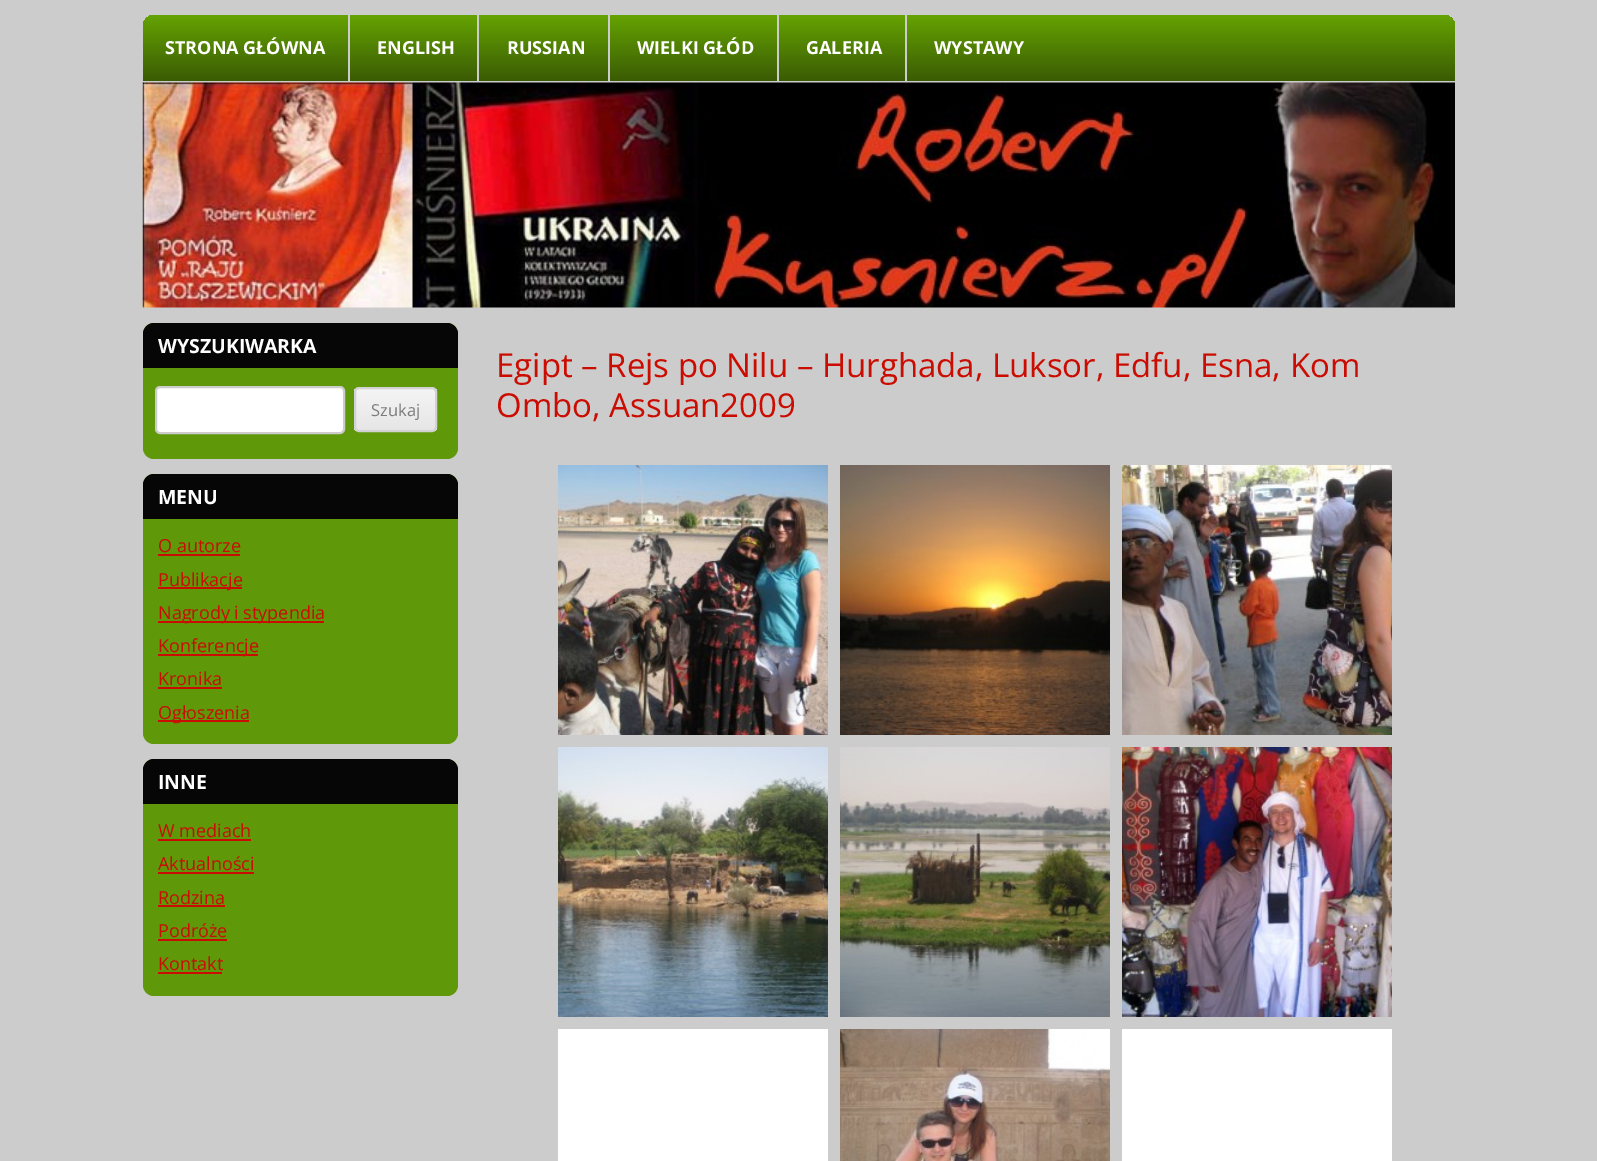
%!PS-Adobe-3.0
%%BoundingBox: 0 0 1597 1161
%%LanguageLevel: 3
%%Pages: 1
%%EndComments
%%BeginProlog
/m { moveto } bind def
/l { lineto } bind def
/c { curveto } bind def
/h { closepath } bind def
/f { fill } bind def
/S { stroke } bind def
/q { gsave } bind def
/Q { grestore } bind def
/w { setlinewidth } bind def
/fn { [ exch dup neg 0 0 3 -1 roll 0 0 ] selectfont } def
/tx { moveto show } def
/bx { rectfill } def
/rr { 5 dict begin { /r /h /w /y /x } { exch def } forall
  x r add y moveto x w add y 2 copy h add r arct x w add y h add x 1 index r arct
  x y h add x y r arct x y 2 copy exch w add exch r arct closepath end } def
/im { 5 dict begin { /h /w /y /x /name } { exch def } forall
  gsave x y translate w h scale
  w h 8 [w 0 0 h 0 0] name (r) file false 3 colorimage grestore end } def
%%EndProlog
%%BeginSetup
<< /PageSize [1597 1161] >> setpagedevice
%%EndSetup
%%Page: 1 1
0 1161 translate 1 -1 scale
4 setmiterlimit
0.8 setgray
0 0 1597 1161 bx
q 154 15 m 1444 15 l 1450 15 1455 20 1455 26 c 1455 81 l 143 81 l 143 26 l 143 20 148 15 154 15 c h clip newpath
<< /ShadingType 2 /ColorSpace /DeviceRGB /Coords [799 15 799 81] /Extend [true true] /Function << /FunctionType 2 /Domain [0 1] /C0 [0.396 0.639 0.008] /C1 [0.227 0.357 0.016] /N 1 >> >> shfill Q
348 15 2 66 bx
/OpenSans-Bold 18 fn
1 setgray
(STRONA GŁÓWNA) 165 54 tx
0.8 setgray
477 15 2 66 bx
1 setgray
(ENGLISH) 377 54 tx
0.8 setgray
608 15 2 66 bx
1 setgray
(RUSSIAN) 507 54 tx
0.8 setgray
777 15 2 66 bx
1 setgray
(WIELKI GŁÓD) 637 54 tx
0.8 setgray
905 15 2 66 bx
1 setgray
(GALERIA) 806 54 tx
(WYSTAWY) 934 54 tx
(image0.raw) 142 82 1313 226 im
0.373 0.596 0.035 setrgbcolor
143 323 315 136 11 rr f
0.024 setgray
154 323 m 447 323 l 453 323 458 328 458 334 c 458 368 l 143 368 l 143 334 l 143 328 148 323 154 323 c h f
/OpenSans-Bold 19.5 fn
1 setgray
(WYSZUKIWARKA) 158 353 tx
156 387 188 46 4 rr q f Q
0.8 setgray
2 w
S
q
354 387 83 45 5 rr clip newpath
q 354 389 m 437 389 l 437 431 l 354 431 l h clip newpath
<< /ShadingType 2 /ColorSpace /DeviceRGB /Coords [395 389 395 431] /Extend [true true] /Function << /FunctionType 2 /Domain [0 1] /C0 [0.957 0.957 0.957] /C1 [0.902 0.902 0.902] /N 1 >> >> shfill Q
Q
0.824 setgray
355 388 81 43 4 rr S
/OpenSans-Regular 16.5 fn
0.486 setgray
(Szukaj) 371 416 tx
0.373 0.596 0.035 setrgbcolor
143 474 315 270 11 rr f
0.024 setgray
154 474 m 447 474 l 453 474 458 479 458 485 c 458 519 l 143 519 l 143 485 l 143 479 148 474 154 474 c h f
/OpenSans-Bold 19.5 fn
1 setgray
(MENU) 158 504 tx
/OpenSans-Regular 18 fn
0.796 0.047 0.008 setrgbcolor
(O autorze) 158 552 tx
158 554 82 2 bx
158 587 84 2 bx
(Publikacje) 158 586 tx
158 621 166 2 bx
(Nagrody i stypendia) 158 619 tx
158 654 100 2 bx
(Konferencje) 158 652 tx
(Kronika) 158 685 tx
158 687 64 2 bx
158 720 91 2 bx
(Ogłoszenia) 158 719 tx
0.373 0.596 0.035 setrgbcolor
143 759 315 237 11 rr f
0.024 setgray
154 759 m 447 759 l 453 759 458 764 458 770 c 458 804 l 143 804 l 143 770 l 143 764 148 759 154 759 c h f
/OpenSans-Bold 19.5 fn
1 setgray
(INNE) 158 789 tx
/OpenSans-Regular 18 fn
0.796 0.047 0.008 setrgbcolor
(W mediach) 158 837 tx
158 839 93 2 bx
(Aktualności) 158 870 tx
158 872 96 2 bx
(Rodzina) 158 904 tx
158 905 67 2 bx
(Podróże) 158 937 tx
158 939 69 2 bx
(Kontakt) 158 970 tx
158 972 64 2 bx
/OpenSans-Regular 33 fn
(Egipt – Rejs po Nilu – Hurghada, Luksor, Edfu, Esna, Kom) 496 377 tx
(Ombo, Assuan2009) 496 417 tx
(image1.raw) 558 465 270 270 im
(image2.raw) 840 465 270 270 im
(image3.raw) 1122 465 270 270 im
(image4.raw) 558 747 270 270 im
(image5.raw) 840 747 270 270 im
(image6.raw) 1122 747 270 270 im
1 setgray
558 1029 270 132 bx
(image7.raw) 840 1029 270 132 im
1122 1029 270 132 bx
showpage
%%EOF
